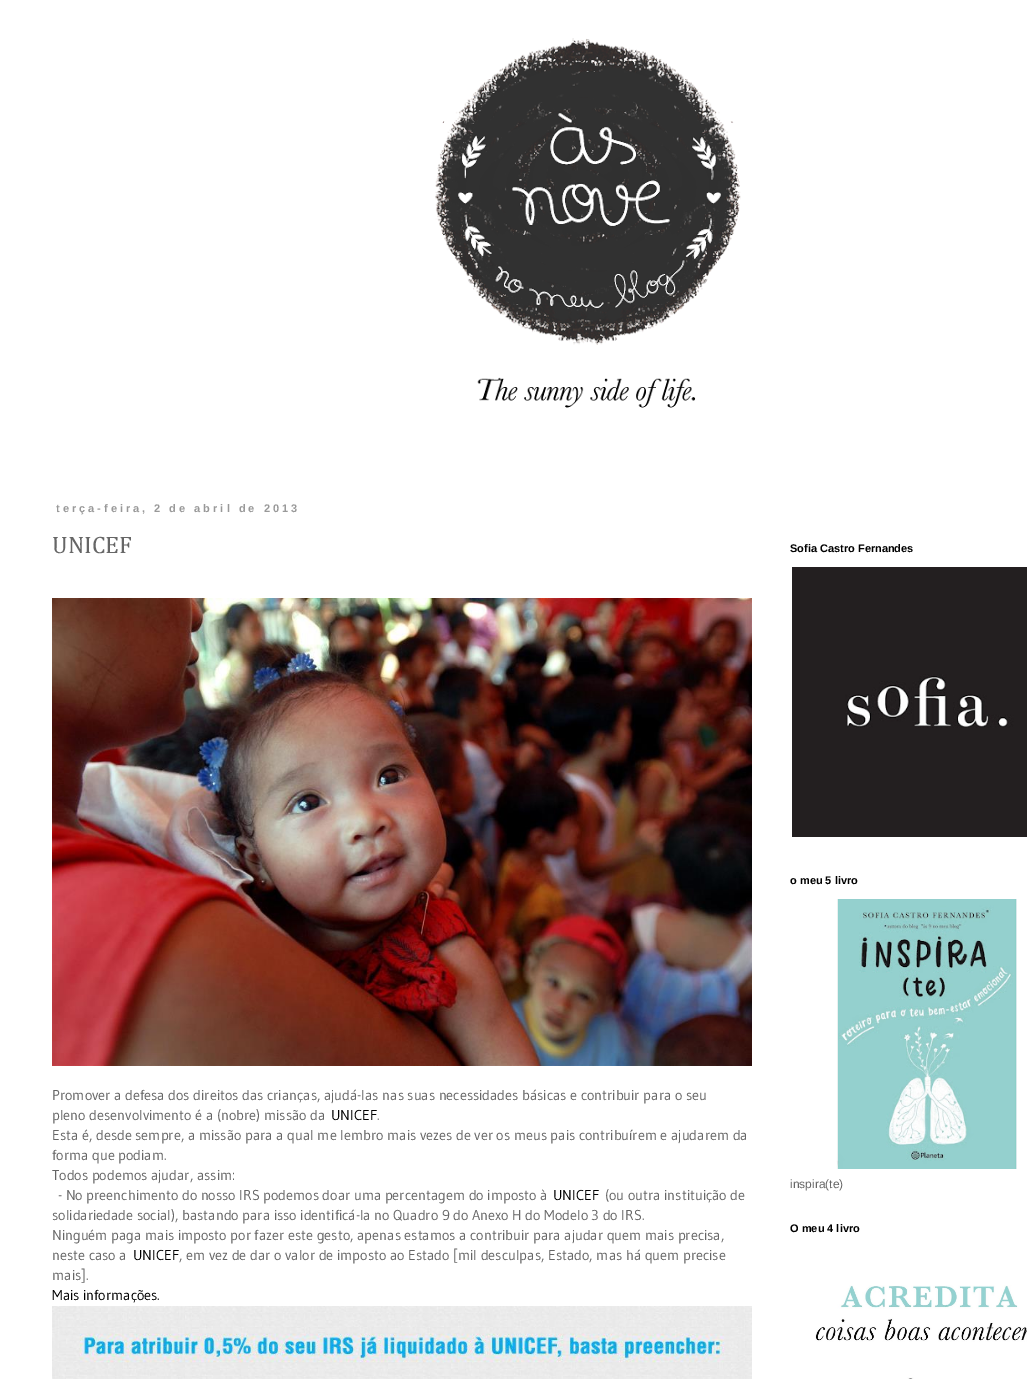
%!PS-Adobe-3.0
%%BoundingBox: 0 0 1027 1379
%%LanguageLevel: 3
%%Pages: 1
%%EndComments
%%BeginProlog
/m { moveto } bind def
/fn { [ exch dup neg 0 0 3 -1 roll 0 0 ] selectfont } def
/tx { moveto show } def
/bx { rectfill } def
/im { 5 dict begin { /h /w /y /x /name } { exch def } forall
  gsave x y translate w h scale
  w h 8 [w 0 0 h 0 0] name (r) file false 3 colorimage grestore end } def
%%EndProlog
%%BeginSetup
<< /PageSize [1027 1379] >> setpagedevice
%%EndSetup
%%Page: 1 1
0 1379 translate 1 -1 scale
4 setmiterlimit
1 setgray
0 0 1027 1379 bx
(image0.raw) 435 38 306 370 im
/LiberationSans-Bold 11 fn
0.6 setgray
56 512 m 3 0 (terça-feira, 2 de abril de 2013) ashow
/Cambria-Regular 24 fn
0.4 setgray
(UNICEF) 52 553 tx
(image1.raw) 52 598 700 468 im
/Gudea-Regular 14.3 fn
(Promover a defesa dos direitos das crianças, ajudá-las nas suas necessidades básicas e contribuir para o seu) 52 1100 tx
(pleno desenvolvimento é a \(nobre\) missão da) 52 1120 tx
0 setgray
(UNICEF) 331 1120 tx
0.4 setgray
(.) 377 1120 tx
(Esta é, desde sempre, a missão para a qual me lembro mais vezes de ver os meus pais contribuírem e ajudarem da) 52 1140 tx
(forma que podiam.) 52 1160 tx
(Todos podemos ajudar, assim:) 52 1180 tx
(- No preenchimento do nosso IRS podemos doar uma percentagem do imposto à) 58 1200 tx
0 setgray
(UNICEF) 553 1200 tx
0.4 setgray
(\(ou outra instituição de) 605 1200 tx
(solidariedade social\), bastando para isso identificá-la no Quadro 9 do Anexo H do Modelo 3 do IRS.) 52 1220 tx
(Ninguém paga mais imposto por fazer este gesto, apenas estamos a contribuir para ajudar quem mais precisa,) 52 1240 tx
(neste caso a) 52 1260 tx
0 setgray
(UNICEF) 133 1260 tx
0.4 setgray
(, em vez de dar o valor de imposto ao Estado [mil desculpas, Estado, mas há quem precise) 179 1260 tx
(mais].) 52 1280 tx
0 setgray
(Mais informações.) 52 1300 tx
(image2.raw) 52 1306 700 73 im
/LiberationSans-Bold 11 fn
(Sofia Castro Fernandes) 790 552 tx
(image3.raw) 792 567 235 270 im
(o meu 5 livro) 790 884 tx
(image4.raw) 836 899 181 270 im
/LiberationSans-Regular 12 fn
0.4 setgray
(inspira\(te\)) 790 1188 tx
/LiberationSans-Bold 11 fn
0 setgray
(O meu 4 livro) 790 1232 tx
(image5.raw) 815 1285 212 94 im
showpage
%%EOF
